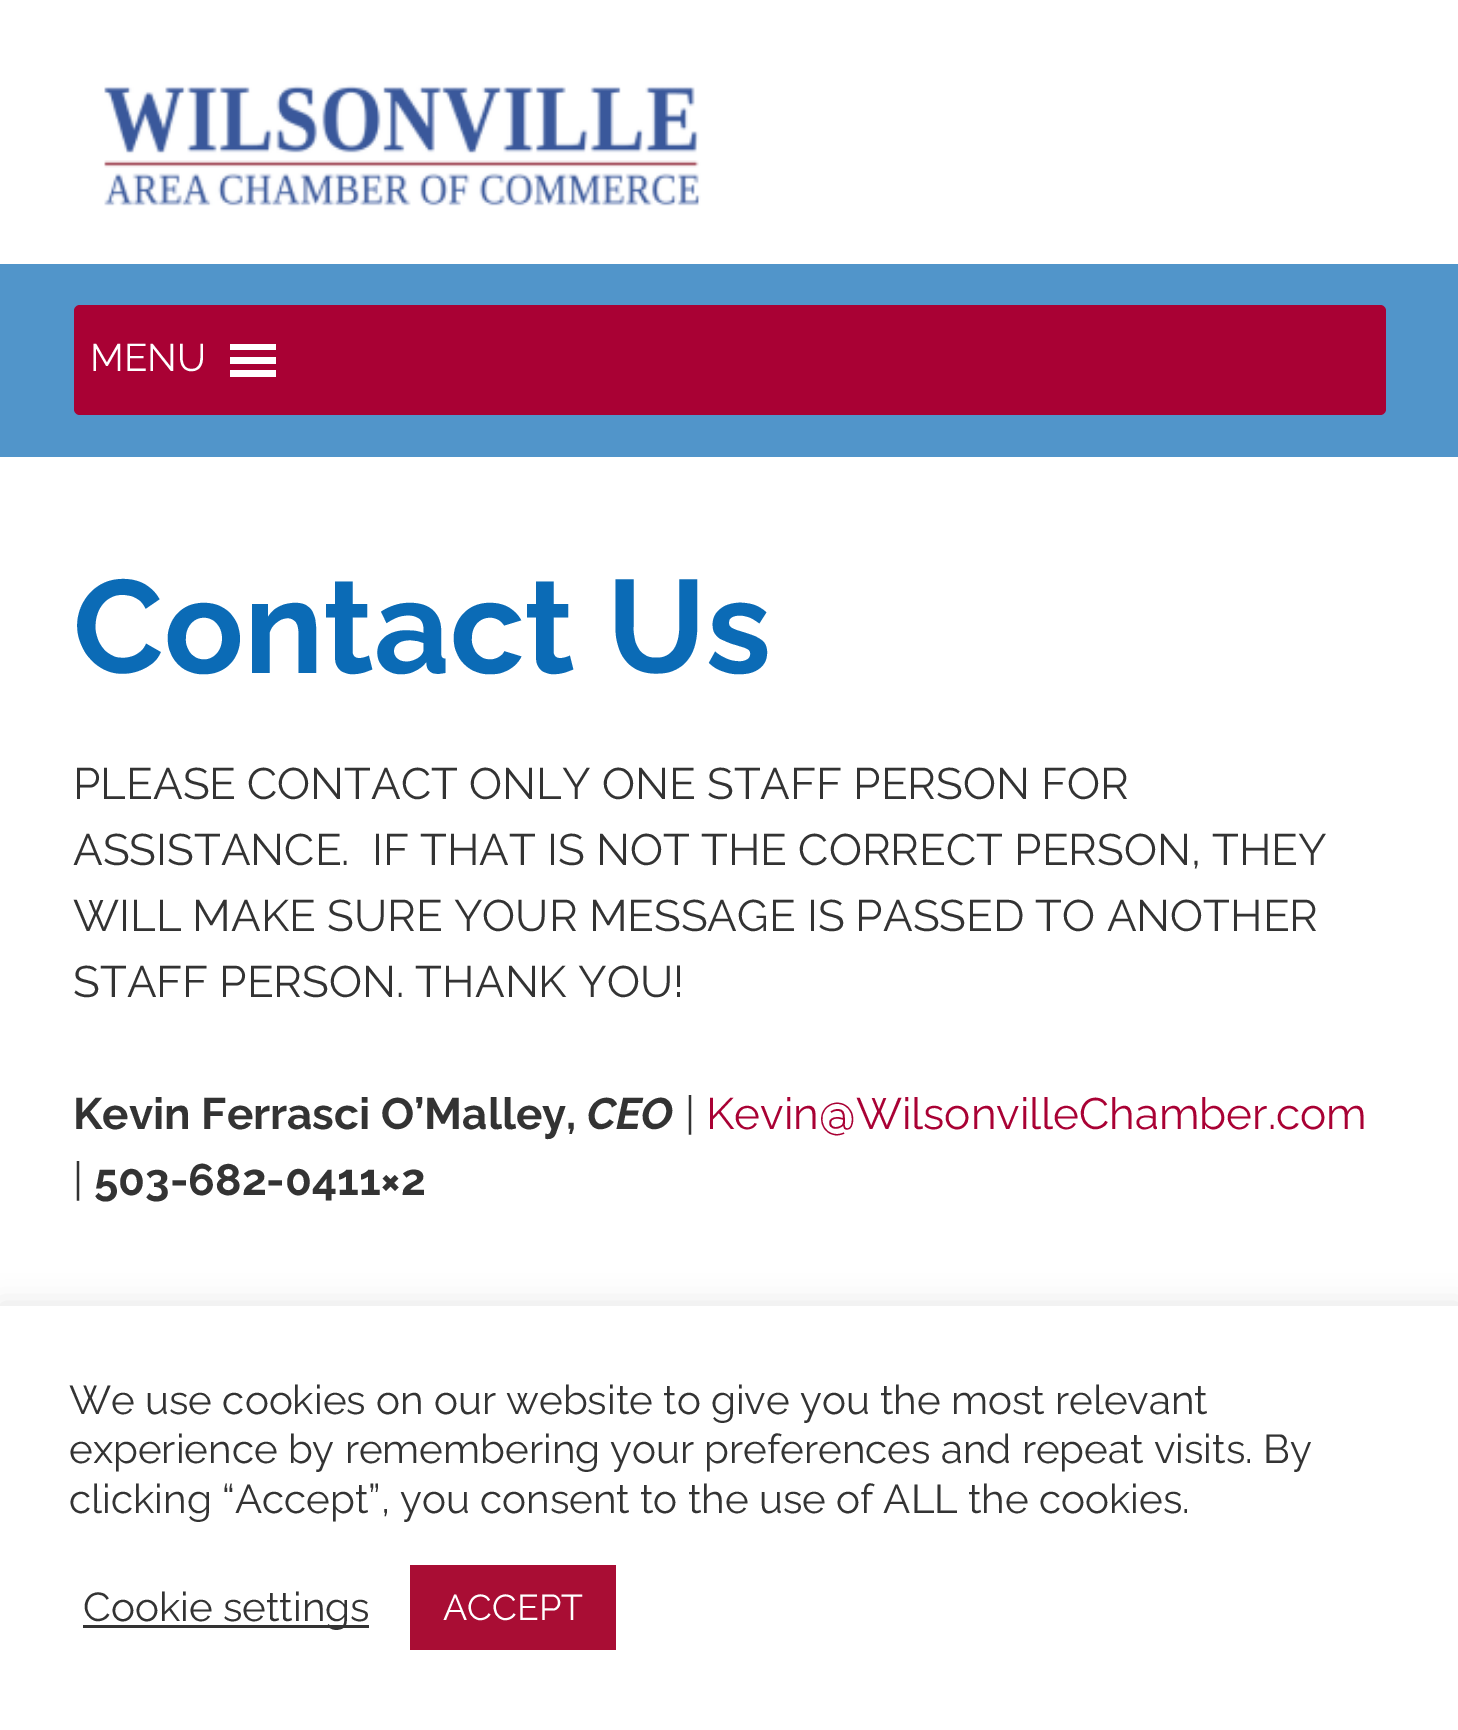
%!PS-Adobe-3.0
%%BoundingBox: 0 0 1458 1730
%%LanguageLevel: 3
%%Pages: 1
%%EndComments
%%BeginProlog
/m { moveto } bind def
/l { lineto } bind def
/h { closepath } bind def
/f { fill } bind def
/fn { [ exch dup neg 0 0 3 -1 roll 0 0 ] selectfont } def
/tx { moveto show } def
/bx { rectfill } def
/al { dup .setfillconstantalpha .setstrokeconstantalpha } def
/rr { 5 dict begin { /r /h /w /y /x } { exch def } forall
  x r add y moveto x w add y 2 copy h add r arct x w add y h add x 1 index r arct
  x y h add x y r arct x y 2 copy exch w add exch r arct closepath end } def
/sh { 12 dict begin { /a /b /q /h /w /y /x } { exch def } forall gsave /was 0 def
  9 -2 -9 { dup b mul 4 div /e exch def 1 sub .425 mul 2.718 exch exp 1 add a .99 .min exch div /now exch def
    1 1 now sub 1 was sub div sub al /was now def
    w h .min e 2 mul add 0 gt { x e sub y e sub w e 2 mul add h e 2 mul add
      q e add b .6 mul add w h .min 2 div e add .min 0 .max rr fill } if } for grestore end } def
/im { 5 dict begin { /h /w /y /x /name } { exch def } forall
  gsave x y translate w h scale
  w h 8 [w 0 0 h 0 0] name (r) file false 3 colorimage grestore end } def
%%EndProlog
%%BeginSetup
<< /PageSize [1458 1730] /PageUsesTransparency true >> setpagedevice
%%EndSetup
%%Page: 1 1
0 .pushpdf14devicefilter
0 1730 translate 1 -1 scale
4 setmiterlimit
1 setgray
0 0 1458 1730 bx
(image0.raw) 104 85 597 121 im
0.318 0.584 0.792 setrgbcolor
0 264 1458 193 bx
0.663 0.004 0.204 setrgbcolor
74 305 1312 110 6 rr f
/Raleway-Regular 38.5 fn
1 setgray
(MENU) 90 371 tx
230 377 m 276 377 l 276 370 l 230 370 l h 230 344 m 230 350 l 276 350 l 276 344 l h 230 364 m 276 364 l 276 357 l 230 357 l h f
/Raleway-Bold 132 fn
0.043 0.42 0.714 setrgbcolor
(Contact Us) 73 673 tx
/Raleway-Regular 44 fn
0.2 setgray
(PLEASE CONTACT ONLY ONE STAFF PERSON FOR) 73 799 tx
(ASSISTANCE.  IF THAT IS NOT THE CORRECT PERSON, THEY) 73 865 tx
(WILL MAKE SURE YOUR MESSAGE IS PASSED TO ANOTHER) 73 931 tx
(STAFF PERSON. THANK YOU!) 73 997 tx
/Raleway-Bold 44 fn
(Kevin Ferrasci O’Malley,) 73 1129 tx
/Raleway-BoldItalic 44 fn
(CEO) 587 1129 tx
/Raleway-Regular 44 fn
(|) 685 1129 tx
0.663 0.004 0.204 setrgbcolor
(Kevin@WilsonvilleChamber.com) 706 1129 tx
0.2 setgray
(|) 73 1195 tx
/Raleway-Bold 44 fn
(503-682-0411×2) 94 1195 tx
0.675 0.671 0.671 setrgbcolor
0 1304 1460 426 0 14 0.3 sh
1 setgray
0 1306 1458 424 bx
/Raleway-Regular 40.3 fn
0.2 setgray
(We use cookies on our website to give you the most relevant) 69 1414 tx
(experience by remembering your preferences and repeat visits. By) 69 1463 tx
(clicking “Accept”, you consent to the use of ALL the cookies.) 69 1513 tx
83 1625 286 3 bx
(Cookie settings) 83 1621 tx
0.663 0.051 0.204 setrgbcolor
410 1565 206 85 bx
/Raleway-Regular 36 fn
1 setgray
(ACCEPT) 443 1620 tx
.poppdf14devicefilter showpage
%%EOF
